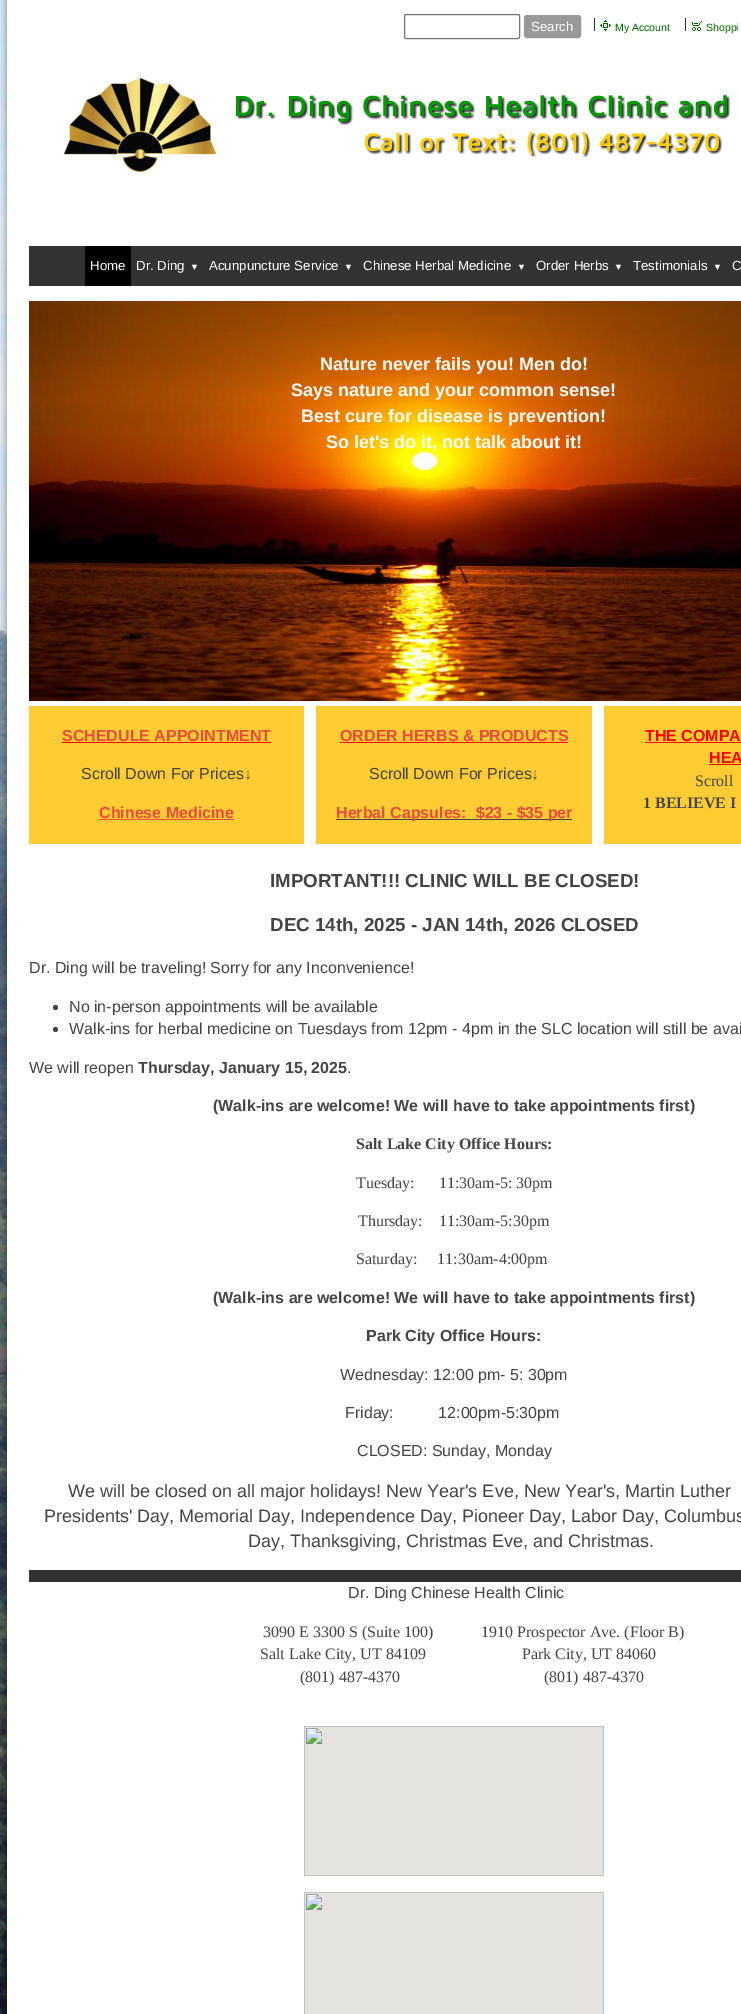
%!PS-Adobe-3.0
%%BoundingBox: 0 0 741 2014
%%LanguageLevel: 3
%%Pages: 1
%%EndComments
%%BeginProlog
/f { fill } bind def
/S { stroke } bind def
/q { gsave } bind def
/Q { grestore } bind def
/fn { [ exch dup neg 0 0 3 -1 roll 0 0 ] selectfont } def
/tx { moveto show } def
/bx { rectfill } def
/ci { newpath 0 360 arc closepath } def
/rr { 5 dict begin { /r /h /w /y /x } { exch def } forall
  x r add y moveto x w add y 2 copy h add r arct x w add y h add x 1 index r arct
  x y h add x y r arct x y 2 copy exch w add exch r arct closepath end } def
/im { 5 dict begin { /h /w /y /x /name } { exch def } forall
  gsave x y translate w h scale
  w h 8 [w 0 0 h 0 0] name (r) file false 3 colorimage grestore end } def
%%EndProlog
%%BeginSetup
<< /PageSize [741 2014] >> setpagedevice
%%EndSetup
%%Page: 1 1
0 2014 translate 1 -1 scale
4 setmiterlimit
1 setgray
0 0 741 2014 bx
(image0.raw) 0 0 7 2014 im
(image1.raw) 0 0 19 2014 im
0.463 setgray
404.5 14.5 115 24 1.5 rr S
0.6 setgray
524.5 15.5 56 22 2.5 rr q f Q
S
/LiberationSans-Regular 13.25 fn
1 setgray
(Search) 531 31 tx
0.196 setgray
594 18 1 13 bx
(image2.raw) 600 20 11 11 im
/LiberationSans-Regular 10.5 fn
0 0.4 0 setrgbcolor
(My Account) 615 31 tx
0.196 setgray
685 18 1 13 bx
(image3.raw) 692 21 10 10 im
0 0.4 0 setrgbcolor
(Shoppi) 706 31 tx
(image4.raw) 63 77 154 96 im
(image5.raw) 236 95 495 62 im
0.2 setgray
29 246 712 40 bx
0 setgray
85 246 46 40 bx
/LiberationSans-Regular 13.25 fn
1 setgray
(Home) 90 270 tx
(Dr. Ding) 136 270 tx
/LiberationSans-Regular 9 fn
(▼) 190 270 tx
/LiberationSans-Regular 13.25 fn
(Acunpuncture Service) 209 270 tx
/LiberationSans-Regular 9 fn
(▼) 344 270 tx
/LiberationSans-Regular 13.25 fn
(Chinese Herbal Medicine) 363 270 tx
/LiberationSans-Regular 9 fn
(▼) 517 270 tx
/LiberationSans-Regular 13.25 fn
(Order Herbs) 536 270 tx
/LiberationSans-Regular 9 fn
(▼) 614 270 tx
/LiberationSans-Regular 13.25 fn
(Testimonials) 633 270 tx
/LiberationSans-Regular 9 fn
(▼) 713 270 tx
/LiberationSans-Regular 13.25 fn
(C) 732 270 tx
(image6.raw) 29 301 712 400 im
/LiberationSans-Bold 18 fn
(Nature never fails you! Men do!) 320 370 tx
(Says nature and your common sense!) 291 396 tx
(Best cure for disease is prevention!) 301 422 tx
(So let's do it, not talk about it!) 326 448 tx
1 0.8 0.2 setrgbcolor
29 706 275 138 bx
/LiberationSans-Bold 16 fn
0.906 0.298 0.235 setrgbcolor
(SCHEDULE APPOINTMENT) 62 741 tx
1 0 0 setrgbcolor
62 742 209 1 bx
/LiberationSans-Regular 16 fn
0.267 setgray
(Scroll Down For Prices) 81 779 tx
/LiberationSans-Bold 16 fn
(↓) 244 779 tx
0.906 0.298 0.235 setrgbcolor
(Chinese Medicine) 99 818 tx
99 819 135 1 bx
1 0.8 0.2 setrgbcolor
316 706 276 138 bx
0.906 0.298 0.235 setrgbcolor
(ORDER HERBS & PRODUCTS) 340 741 tx
1 0 0 setrgbcolor
340 742 228 1 bx
/LiberationSans-Regular 16 fn
0.267 setgray
(Scroll Down For Prices) 369 779 tx
/LiberationSans-Bold 16 fn
(↓) 531 779 tx
336 819 236 1 bx
0.906 0.298 0.235 setrgbcolor
(Herbal Capsules:  $23 - $35 per) 336 818 tx
1 0.8 0.2 setrgbcolor
604 706 137 138 bx
1 0 0 setrgbcolor
(THE COMPA) 645 741 tx
645 742 96 1 bx
(HEA) 709 763 tx
709 764 32 1 bx
/LiberationSerif-Regular 16 fn
0.267 setgray
(Scroll) 695 786 tx
/LiberationSerif-Bold 16 fn
(1 BELIEVE I) 643 808 tx
/LiberationSans-Bold 18.75 fn
(IMPORTANT!!! CLINIC WILL BE CLOSED!) 270 887 tx
(DEC 14th, 2025 - JAN 14th, 2026 CLOSED) 270 931 tx
/LiberationSans-Regular 16 fn
(Dr. Ding will be traveling! Sorry for any Inconvenience!) 29 973 tx
55.5 1007.5 2.5 ci f
(No in-person appointments will be available) 69 1012 tx
55.5 1029.5 2.5 ci f
(Walk-ins for herbal medicine on Tuesdays from 12pm - 4pm in the SLC location will still be avai) 69 1034 tx
(We will reopen) 29 1073 tx
/LiberationSans-Bold 16 fn
(Thursday, January 15, 2025) 138 1073 tx
/LiberationSans-Regular 16 fn
(.) 347 1073 tx
/LiberationSans-Bold 16 fn
(\(Walk-ins are welcome! We will have to take appointments first\)) 213 1111 tx
/LiberationSerif-Bold 16 fn
(Salt Lake City Office Hours:) 356 1149 tx
/LiberationSerif-Regular 16 fn
(Tuesday:      11:30am-5: 30pm) 356 1188 tx
(Thursday:    11:30am-5:30pm) 358 1226 tx
(Saturday:     11:30am-4:00pm) 356 1264 tx
/LiberationSans-Bold 16 fn
(\(Walk-ins are welcome! We will have to take appointments first\)) 213 1303 tx
(Park City Office Hours:) 366 1341 tx
/LiberationSans-Regular 16 fn
(Wednesday: 12:00 pm- 5: 30pm) 340 1380 tx
(Friday:          12:00pm-5:30pm) 345 1418 tx
(CLOSED: Sunday, Monday) 357 1456 tx
/LiberationSans-Regular 18 fn
(We will be closed on all major holidays! New Year's Eve, New Year's, Martin Luther) 68 1497 tx
(Presidents' Day, Memorial Day, Independence Day, Pioneer Day, Labor Day, Columbus) 44 1522 tx
(Day, Thanksgiving, Christmas Eve, and Christmas.) 248 1547 tx
0.2 setgray
29 1570 712 12 bx
/LiberationSans-Regular 16 fn
0.267 setgray
(Dr. Ding Chinese Health Clinic) 348 1598 tx
/LiberationSerif-Regular 16 fn
(3090 E 3300 S \(Suite 100\)            1910 Prospector Ave. \(Floor B\)) 263 1637 tx
(Salt Lake City, UT 84109                        Park City, UT 84060) 260 1659 tx
(\(801\) 487-4370                                    \(801\) 487-4370) 300 1682 tx
(image7.raw) 304 1726 300 150 im
(image8.raw) 304 1892 300 122 im
showpage
%%EOF
